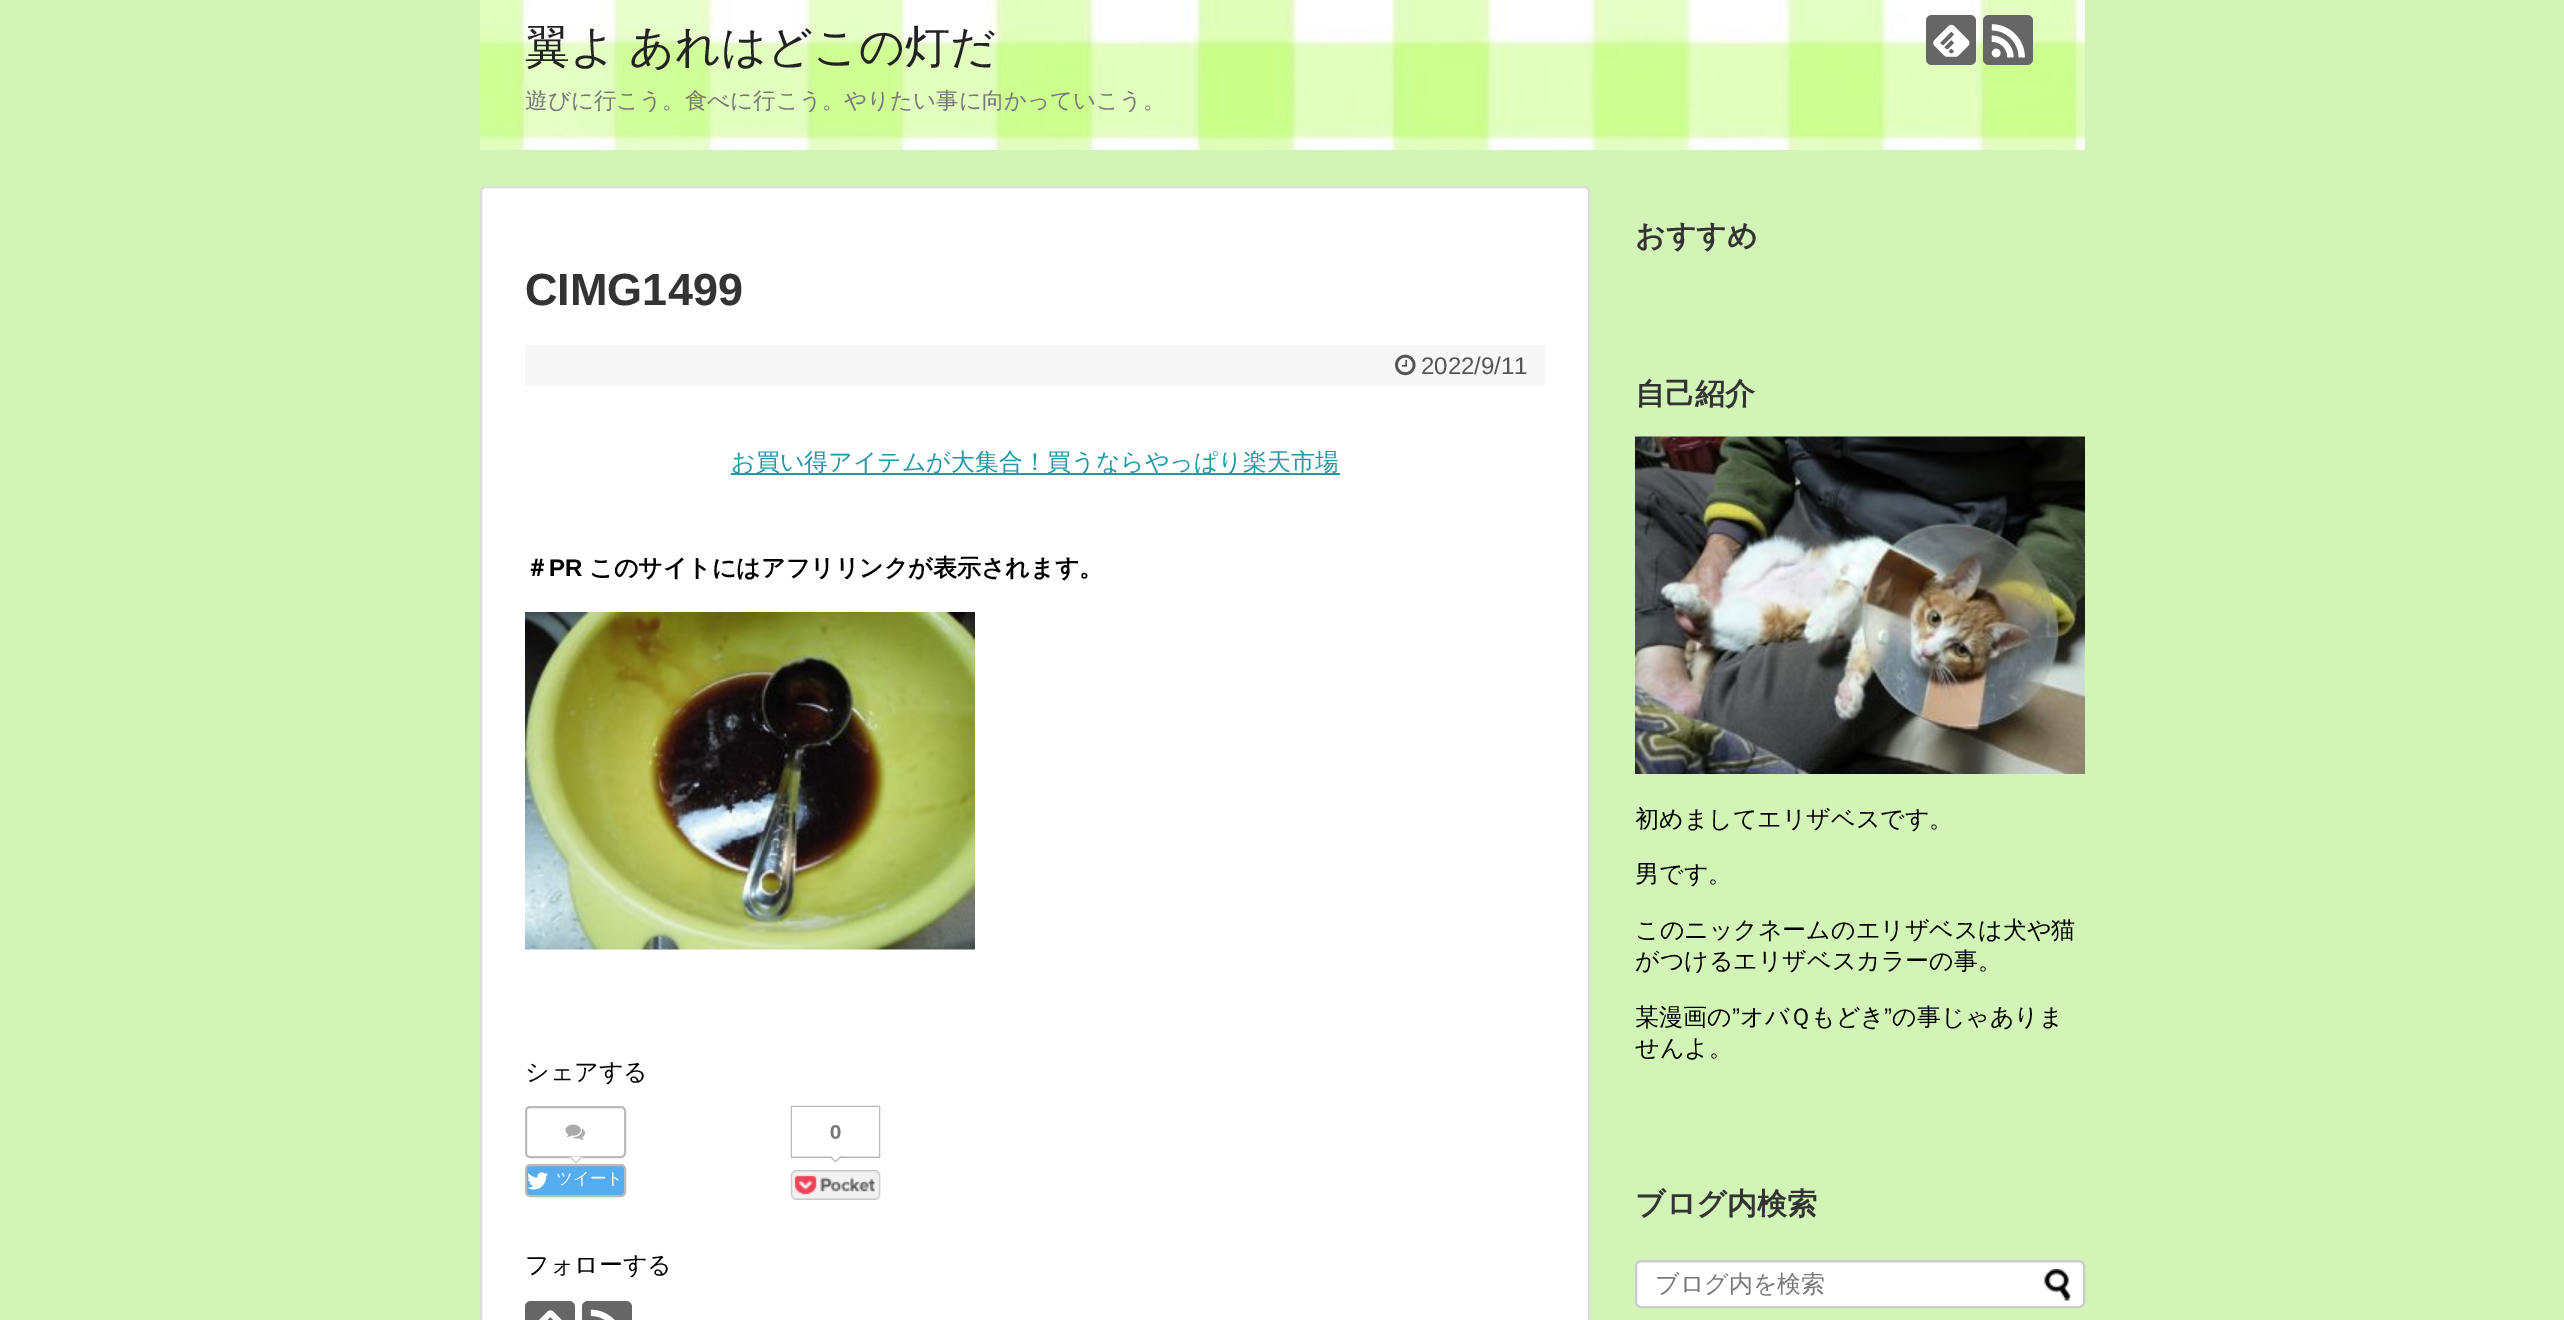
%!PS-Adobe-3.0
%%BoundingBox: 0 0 2564 1320
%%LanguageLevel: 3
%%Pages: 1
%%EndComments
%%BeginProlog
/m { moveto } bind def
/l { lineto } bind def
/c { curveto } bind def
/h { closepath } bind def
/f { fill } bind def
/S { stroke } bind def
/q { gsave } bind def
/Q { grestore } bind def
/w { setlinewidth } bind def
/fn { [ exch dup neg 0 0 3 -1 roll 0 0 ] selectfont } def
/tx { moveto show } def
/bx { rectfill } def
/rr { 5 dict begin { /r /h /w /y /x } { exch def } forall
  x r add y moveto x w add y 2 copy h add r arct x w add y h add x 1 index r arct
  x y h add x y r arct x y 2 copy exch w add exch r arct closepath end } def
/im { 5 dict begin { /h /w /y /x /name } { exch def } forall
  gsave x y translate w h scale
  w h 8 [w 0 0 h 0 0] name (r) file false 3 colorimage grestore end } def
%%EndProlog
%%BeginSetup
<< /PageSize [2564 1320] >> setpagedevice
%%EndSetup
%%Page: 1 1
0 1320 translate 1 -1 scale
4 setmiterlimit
0.824 0.957 0.718 setrgbcolor
0 0 2564 1320 bx
(image0.raw) 480 0 1605 150 im
/WenQuanYiZenHei-Medium 45 fn
0.133 setgray
525 62 m -1 0 32 (翼よ あれはどこの灯だ) widthshow
/WenQuanYiZenHei-Medium 22.5 fn
0.467 setgray
(遊びに行こう。食べに行こう。やりたい事に向かっていこう。) 525 108 tx
0.4 setgray
1926 15 50 50 6 rr f
(image1.raw) 1933 24 37 33 im
1983 15 50 50 6 rr f
(image2.raw) 1991 24 34 34 im
1 setgray
481 187 1108 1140 5 rr q f Q
0.867 setgray
2 w
S
/LiberationSans-Bold 45 fn
0.2 setgray
(CIMG1499) 525 305 tx
0.969 setgray
525 345 1020 41 bx
(image3.raw) 1395 354 21 22 im
/LiberationSans-Regular 24 fn
0.333 setgray
(2022/9/11) 1421 374 tx
0.125 0.596 0.659 setrgbcolor
731 473 609 2 bx
/WenQuanYiZenHei-Medium 24 fn
(お買い得アイテムが大集合！買うならやっぱり楽天市場) 731 470 tx
/WenQuanYiZenHei-Bold 24 fn
0 setgray
(＃) 525 576 tx
/LiberationSans-Bold 24 fn
(PR) 549 576 tx
/WenQuanYiZenHei-Bold 24 fn
(このサイトにはアフリリンクが表示されます。) 589 576 tx
(image4.raw) 525 612 450 338 im
/WenQuanYiZenHei-Medium 24 fn
(シェアする) 525 1080 tx
0.733 setgray
526 1107 99 50 4 rr S
(image5.raw) 565 1124 20 16 im
0.867 setgray
568.5 1156.5 m 583.5 1156.5 l 576 1164 l h f
1 setgray
571.5 1156.5 m 580.5 1156.5 l 576 1161 l h f
0.333 0.675 0.933 setrgbcolor
526 1165 99 31 4 rr q f Q
0.733 setgray
S
(image6.raw) 527 1172 21 18 im
/WenQuanYiZenHei-Medium 16.5 fn
1 setgray
(ツイート) 556 1184 tx
(image7.raw) 790 1105 91 95 im
/WenQuanYiZenHei-Medium 24 fn
0 setgray
(フォローする) 525 1273 tx
0.4 setgray
525 1301 50 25 6 rr f
(image8.raw) 539 1310 23 10 im
582 1301 50 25 6 rr f
(image9.raw) 590 1309 25 11 im
/WenQuanYiZenHei-Bold 30 fn
0.2 setgray
(おすすめ) 1635 246 tx
(自己紹介) 1635 404 tx
(image10.raw) 1635 436 450 338 im
/WenQuanYiZenHei-Medium 24 fn
0 setgray
(初めましてエリザベスです。) 1635 827 tx
(男です。) 1635 882 tx
(このニックネームのエリザベスは犬や猫) 1635 938 tx
(がつけるエリザベスカラーの事。) 1635 969 tx
(某漫画の) 1635 1025 tx
/LiberationSans-Regular 24 fn
(”) 1732 1025 tx
/WenQuanYiZenHei-Medium 24 fn
(オバＱもどき) 1740 1025 tx
/LiberationSans-Regular 24 fn
(”) 1884 1025 tx
/WenQuanYiZenHei-Medium 24 fn
(の事じゃありま) 1892 1025 tx
(せんよ。) 1635 1056 tx
/WenQuanYiZenHei-Bold 30 fn
0.2 setgray
(ブログ内検索) 1635 1214 tx
1 setgray
1635 1260 450 48 6 rr f
0.925 setgray
1641 1263 m 2079 1263 l 2081 1263 2084 1265 2084 1268 c 2084 1267 l 2084 1264 2082 1262 2079 1262 c 1642 1262 l 1640 1262 1639 1263 1638 1264 c h f
0.8 setgray
1636 1261 448 46 5 rr S
/WenQuanYiZenHei-Medium 24 fn
0.467 setgray
(ブログ内を検索) 1655 1292 tx
(image11.raw) 2044 1269 27 32 im
showpage
%%EOF
